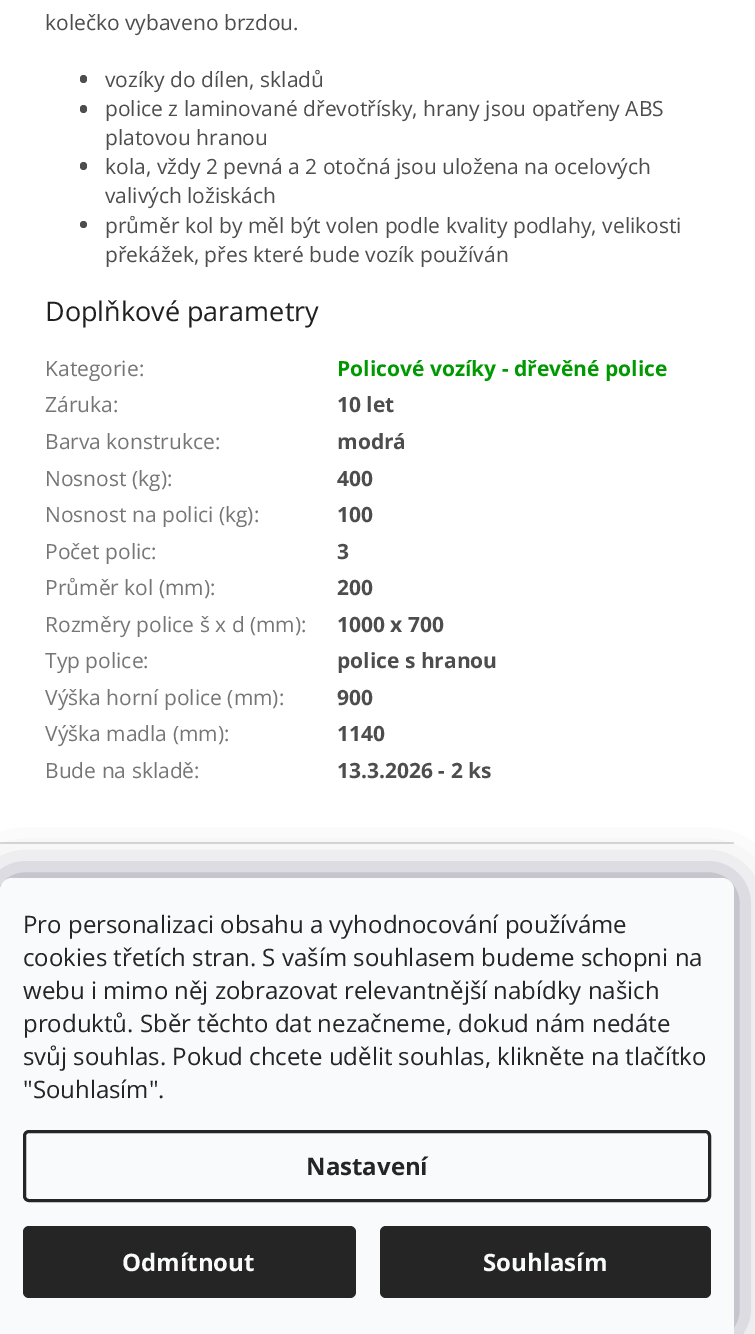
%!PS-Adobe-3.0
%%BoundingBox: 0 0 755 1334
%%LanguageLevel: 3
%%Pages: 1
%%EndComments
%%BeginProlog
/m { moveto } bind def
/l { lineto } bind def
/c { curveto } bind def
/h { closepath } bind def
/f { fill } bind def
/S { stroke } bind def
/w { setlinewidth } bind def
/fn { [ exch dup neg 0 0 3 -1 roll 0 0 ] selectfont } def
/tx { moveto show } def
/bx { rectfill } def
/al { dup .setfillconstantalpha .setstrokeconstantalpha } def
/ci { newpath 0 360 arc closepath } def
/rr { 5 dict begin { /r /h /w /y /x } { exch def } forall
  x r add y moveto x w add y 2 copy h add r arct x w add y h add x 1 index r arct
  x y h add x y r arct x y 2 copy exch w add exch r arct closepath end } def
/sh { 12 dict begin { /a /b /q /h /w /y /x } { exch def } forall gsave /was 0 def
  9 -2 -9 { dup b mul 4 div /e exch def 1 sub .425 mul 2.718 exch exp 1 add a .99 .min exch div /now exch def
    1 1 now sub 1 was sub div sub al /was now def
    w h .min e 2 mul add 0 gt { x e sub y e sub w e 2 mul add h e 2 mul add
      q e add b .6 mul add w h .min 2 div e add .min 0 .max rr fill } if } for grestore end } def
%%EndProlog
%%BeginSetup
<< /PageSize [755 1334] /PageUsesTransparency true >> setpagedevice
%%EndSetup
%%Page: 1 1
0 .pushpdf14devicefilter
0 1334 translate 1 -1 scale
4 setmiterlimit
1 setgray
0 0 755 1334 bx
/OpenSans-Regular 21 fn
0.302 setgray
(kolečko vybaveno brzdou.) 45 30 tx
80 75 7 8 3.5 rr f
(vozíky do dílen, skladů) 105 87 tx
80 105 7 8 3.5 rr f
(police z laminované dřevotřísky, hrany jsou opatřeny ABS) 105 116 tx
(platovou hranou) 105 145 tx
80 162 7 8 3.5 rr f
(kola, vždy 2 pevná a 2 otočná jsou uložena na ocelových) 105 174 tx
(valivých ložiskách) 105 203 tx
83.5 224.5 3.5 ci f
(průměr kol by měl být volen podle kvality podlahy, velikosti) 105 233 tx
(překážek, přes které bude vozík používán) 105 262 tx
/OpenSans-Regular 27 fn
0.122 setgray
(Doplňkové parametry) 45 321 tx
/OpenSans-Regular 21 fn
0.463 setgray
(Kategorie:) 45 376 tx
/OpenSans-Bold 21 fn
0 0.6 0.004 setrgbcolor
(Policové vozíky - dřevěné police) 337 376 tx
/OpenSans-Regular 21 fn
0.463 setgray
(Záruka:) 45 412 tx
/OpenSans-Bold 21 fn
0.302 setgray
(10 let) 337 412 tx
/OpenSans-Regular 21 fn
0.463 setgray
(Barva konstrukce:) 45 449 tx
/OpenSans-Bold 21 fn
0.302 setgray
(modrá) 337 449 tx
/OpenSans-Regular 21 fn
0.463 setgray
(Nosnost \(kg\):) 45 486 tx
/OpenSans-Bold 21 fn
0.302 setgray
(400) 337 486 tx
/OpenSans-Regular 21 fn
0.463 setgray
(Nosnost na polici \(kg\):) 45 522 tx
/OpenSans-Bold 21 fn
0.302 setgray
(100) 337 522 tx
/OpenSans-Regular 21 fn
0.463 setgray
(Počet polic:) 45 559 tx
/OpenSans-Bold 21 fn
0.302 setgray
(3) 337 559 tx
/OpenSans-Regular 21 fn
0.463 setgray
(Průměr kol \(mm\):) 45 595 tx
/OpenSans-Bold 21 fn
0.302 setgray
(200) 337 595 tx
/OpenSans-Regular 21 fn
0.463 setgray
(Rozměry police š x d \(mm\):) 45 632 tx
/OpenSans-Bold 21 fn
0.302 setgray
(1000 x 700) 337 632 tx
/OpenSans-Regular 21 fn
0.463 setgray
(Typ police:) 45 668 tx
/OpenSans-Bold 21 fn
0.302 setgray
(police s hranou) 337 668 tx
/OpenSans-Regular 21 fn
0.463 setgray
(Výška horní police \(mm\):) 45 705 tx
/OpenSans-Bold 21 fn
0.302 setgray
(900) 337 705 tx
/OpenSans-Regular 21 fn
0.463 setgray
(Výška madla \(mm\):) 45 741 tx
/OpenSans-Bold 21 fn
0.302 setgray
(1140) 337 741 tx
/OpenSans-Regular 21 fn
0.463 setgray
(Bude na skladě:) 45 778 tx
/OpenSans-Bold 21 fn
0.302 setgray
(13.3.2026 - 2 ks) 337 778 tx
0.855 setgray
0 842 734 2 bx
0.106 0.098 0.224 setrgbcolor
0 878 734 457 12 22.5 0.5 sh
0.973 0.98 0.984 setrgbcolor
12 878 m 722 878 l 728.5 878 734 883.5 734 890 c 734 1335 l 0 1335 l 0 890 l 0 883.5 5.5 878 12 878 c h f
/OpenSans-Regular 24 fn
0.145 setgray
(Pro personalizaci obsahu a vyhodnocování používáme) 23 933 tx
(cookies třetích stran. S vaším souhlasem budeme schopni na) 23 966 tx
(webu i mimo něj zobrazovat relevantnější nabídky našich) 23 999 tx
(produktů. Sběr těchto dat nezačneme, dokud nám nedáte) 23 1032 tx
(svůj souhlas. Pokud chcete udělit souhlas, klikněte na tlačítko) 23 1065 tx
("Souhlasím".) 23 1098 tx
3 w
24.5 1131.5 685 69 4.5 rr S
/OpenSans-Bold 24 fn
(Nastavení) 306 1175 tx
23 1226 333 72 6 rr f
0.973 0.98 0.984 setrgbcolor
(Odmítnout) 122 1271 tx
0.145 setgray
380 1226 331 72 6 rr f
0.973 0.98 0.984 setrgbcolor
(Souhlasím) 483 1271 tx
.poppdf14devicefilter showpage
%%EOF
